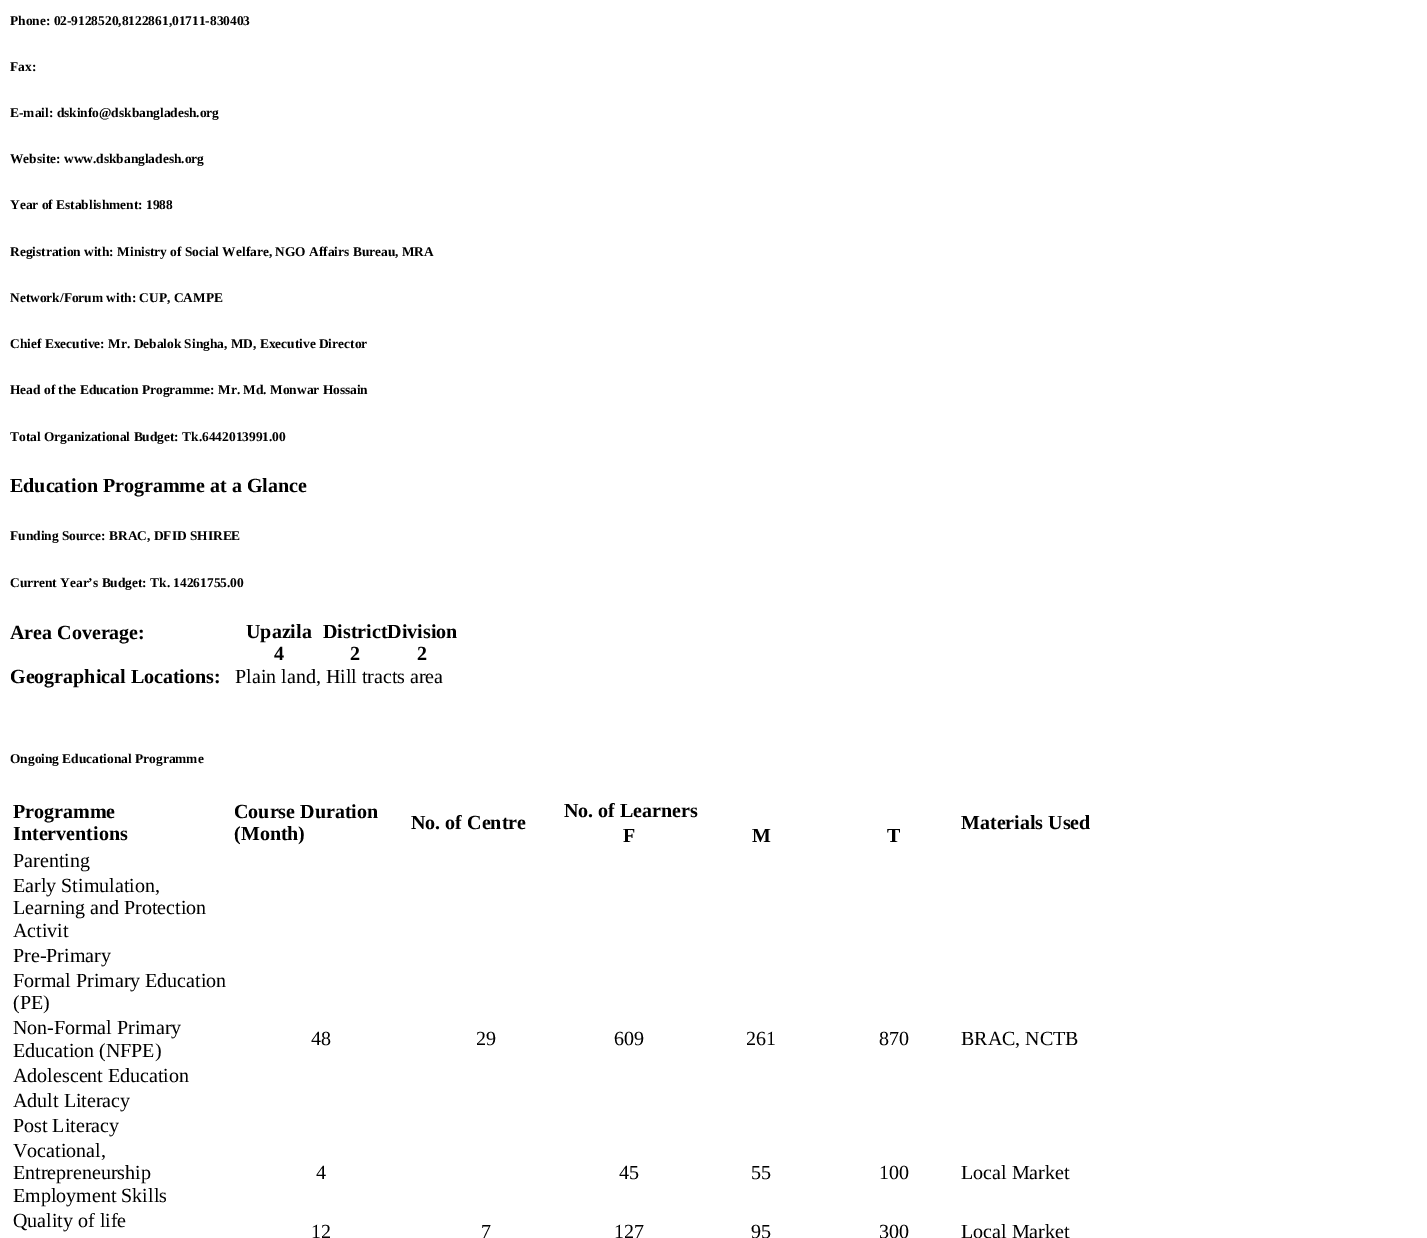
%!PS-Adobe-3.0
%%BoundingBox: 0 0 1427 1238
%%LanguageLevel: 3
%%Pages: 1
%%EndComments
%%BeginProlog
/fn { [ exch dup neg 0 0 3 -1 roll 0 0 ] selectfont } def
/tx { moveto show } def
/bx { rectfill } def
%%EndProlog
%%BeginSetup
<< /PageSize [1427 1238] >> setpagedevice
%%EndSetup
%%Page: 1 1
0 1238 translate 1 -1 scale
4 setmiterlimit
1 setgray
0 0 1427 1238 bx
/LiberationSerif-Bold 13.4 fn
0 setgray
(Phone: 02-9128520,8122861,01711-830403) 10 25 tx
(Fax:) 10 71 tx
(E-mail: dskinfo@dskbangladesh.org) 10 117 tx
(Website: www.dskbangladesh.org) 10 163 tx
(Year of Establishment: 1988) 10 209 tx
(Registration with: Ministry of Social Welfare, NGO Affairs Bureau, MRA) 10 256 tx
(Network/Forum with: CUP, CAMPE) 10 302 tx
(Chief Executive: Mr. Debalok Singha, MD, Executive Director) 10 348 tx
(Head of the Education Programme: Mr. Md. Monwar Hossain) 10 394 tx
(Total Organizational Budget: Tk.6442013991.00) 10 441 tx
/LiberationSerif-Bold 20 fn
(Education Programme at a Glance) 10 492 tx
/LiberationSerif-Bold 13.4 fn
(Funding Source: BRAC, DFID SHIREE) 10 540 tx
(Current Year’s Budget: Tk. 14261755.00) 10 587 tx
/LiberationSerif-Bold 20 fn
(Area Coverage:) 10 639 tx
(Upazila) 246 638 tx
(DistrictDivision) 323 638 tx
(4) 274 660 tx
(2) 350 660 tx
(2) 417 660 tx
(Geographical Locations:) 10 683 tx
/LiberationSerif-Regular 20 fn
(Plain land, Hill tracts area) 235 683 tx
/LiberationSerif-Bold 13.4 fn
(Ongoing Educational Programme) 10 763 tx
/LiberationSerif-Bold 20 fn
(Programme) 13 818 tx
(Interventions) 13 840 tx
(Course Duration) 234 818 tx
(\(Month\)) 234 840 tx
(No. of Centre) 411 829 tx
(No. of Learners) 564 817 tx
(Materials Used) 961 829 tx
(F) 623 842 tx
(M) 752 842 tx
(T) 887 842 tx
/LiberationSerif-Regular 20 fn
(Parenting) 13 867 tx
(Early Stimulation,) 13 892 tx
(Learning and Protection) 13 914 tx
(Activit) 13 937 tx
(Pre-Primary) 13 962 tx
(Formal Primary Education) 13 987 tx
(\(PE\)) 13 1009 tx
(Non-Formal Primary) 13 1034 tx
(Education \(NFPE\)) 13 1057 tx
(48) 311 1045 tx
(29) 476 1045 tx
(609) 614 1045 tx
(261) 746 1045 tx
(870) 879 1045 tx
(BRAC, NCTB) 961 1045 tx
(Adolescent Education) 13 1082 tx
(Adult Literacy) 13 1107 tx
(Post Literacy) 13 1132 tx
(Vocational,) 13 1157 tx
(Entrepreneurship) 13 1179 tx
(Employment Skills) 13 1202 tx
(4) 316 1179 tx
(45) 619 1179 tx
(55) 751 1179 tx
(100) 879 1179 tx
(Local Market) 961 1179 tx
(Quality of life) 13 1227 tx
(12) 311 1238 tx
(7) 481 1238 tx
(127) 614 1238 tx
(95) 751 1238 tx
(300) 879 1238 tx
(Local Market) 961 1238 tx
showpage
%%EOF
